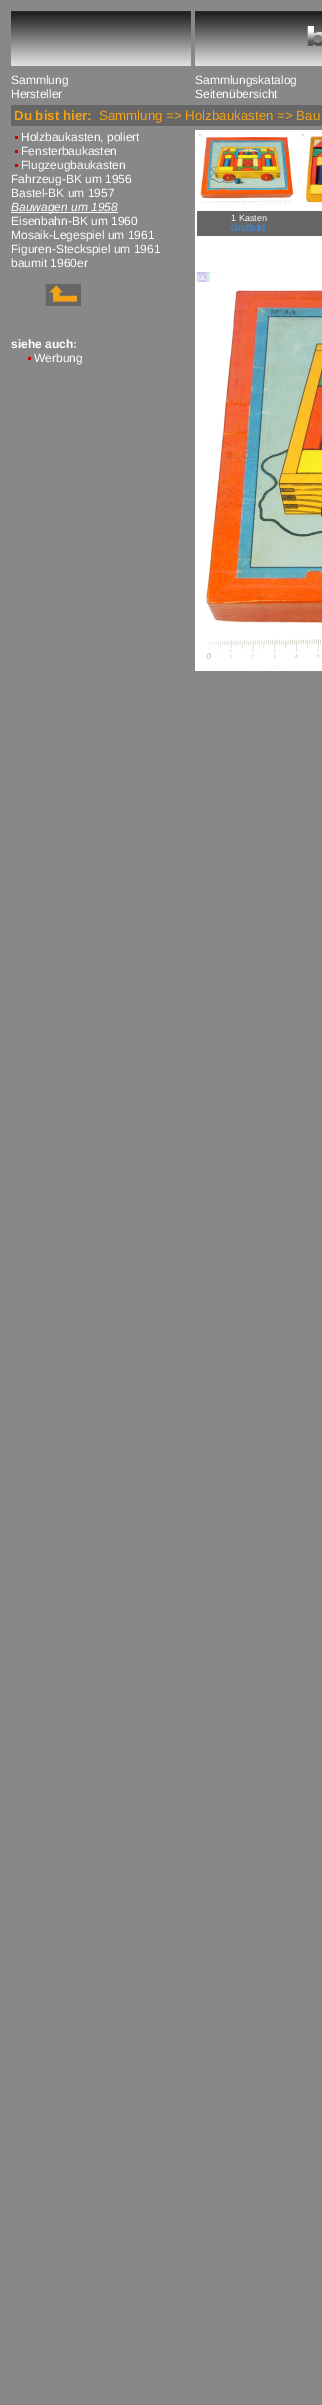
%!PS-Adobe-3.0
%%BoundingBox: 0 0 322 2405
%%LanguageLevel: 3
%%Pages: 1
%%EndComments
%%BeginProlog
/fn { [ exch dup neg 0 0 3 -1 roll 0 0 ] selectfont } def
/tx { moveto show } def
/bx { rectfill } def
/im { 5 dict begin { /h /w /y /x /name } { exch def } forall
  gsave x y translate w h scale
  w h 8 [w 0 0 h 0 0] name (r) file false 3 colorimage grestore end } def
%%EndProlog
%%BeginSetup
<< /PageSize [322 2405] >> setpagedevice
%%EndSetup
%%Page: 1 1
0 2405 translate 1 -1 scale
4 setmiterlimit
0.533 setgray
0 0 322 2405 bx
(image0.raw) 11 11 180 55 im
(image1.raw) 195 11 127 55 im
/LiberationSans-Regular 12 fn
1 setgray
(Sammlung) 11 84 tx
(Hersteller) 11 98 tx
(Sammlungskatalog) 195 84 tx
(Seitenübersicht) 195 98 tx
0.4 setgray
11 105 311 21 bx
/LiberationSans-Bold 13.3 fn
0.957 0.639 0.082 setrgbcolor
(Du bist hier:) 14 120 tx
/LiberationSans-Regular 13.3 fn
(Sammlung => Holzbaukasten => Bau) 99 120 tx
0.8 0 0 setrgbcolor
15 136 3 3 bx
/LiberationSans-Regular 12 fn
1 setgray
(Holzbaukasten, poliert) 21 141 tx
0.8 0 0 setrgbcolor
15 150 3 3 bx
1 setgray
(Fensterbaukasten) 21 155 tx
0.8 0 0 setrgbcolor
15 164 3 3 bx
1 setgray
(Flugzeugbaukasten) 21 169 tx
(Fahrzeug-BK um 1956) 11 183 tx
(Bastel-BK um 1957) 11 197 tx
11 212 107 1 bx
/LiberationSans-Italic 12 fn
(Bauwagen um 1958) 11 211 tx
/LiberationSans-Regular 12 fn
(Eisenbahn-BK um 1960) 11 225 tx
(Mosaik-Legespiel um 1961) 11 239 tx
(Figuren-Steckspiel um 1961) 11 253 tx
(baumit 1960er) 11 267 tx
(image2.raw) 45 284 36 22 im
/LiberationSans-Bold 12 fn
(siehe auch:) 11 348 tx
0.8 0 0 setrgbcolor
28 357 3 3 bx
/LiberationSans-Regular 12 fn
1 setgray
(Werbung) 34 362 tx
195 130 127 541 bx
(image3.raw) 199 134 95 71 im
(image4.raw) 302 134 20 69 im
0.4 setgray
197 211 125 25 bx
/LiberationSans-Regular 9 fn
1 setgray
(1 Kasten) 231 221 tx
0.192 0.58 0.945 setrgbcolor
(Großbild) 231 231 tx
(image5.raw) 197 272 125 394 im
showpage
%%EOF
